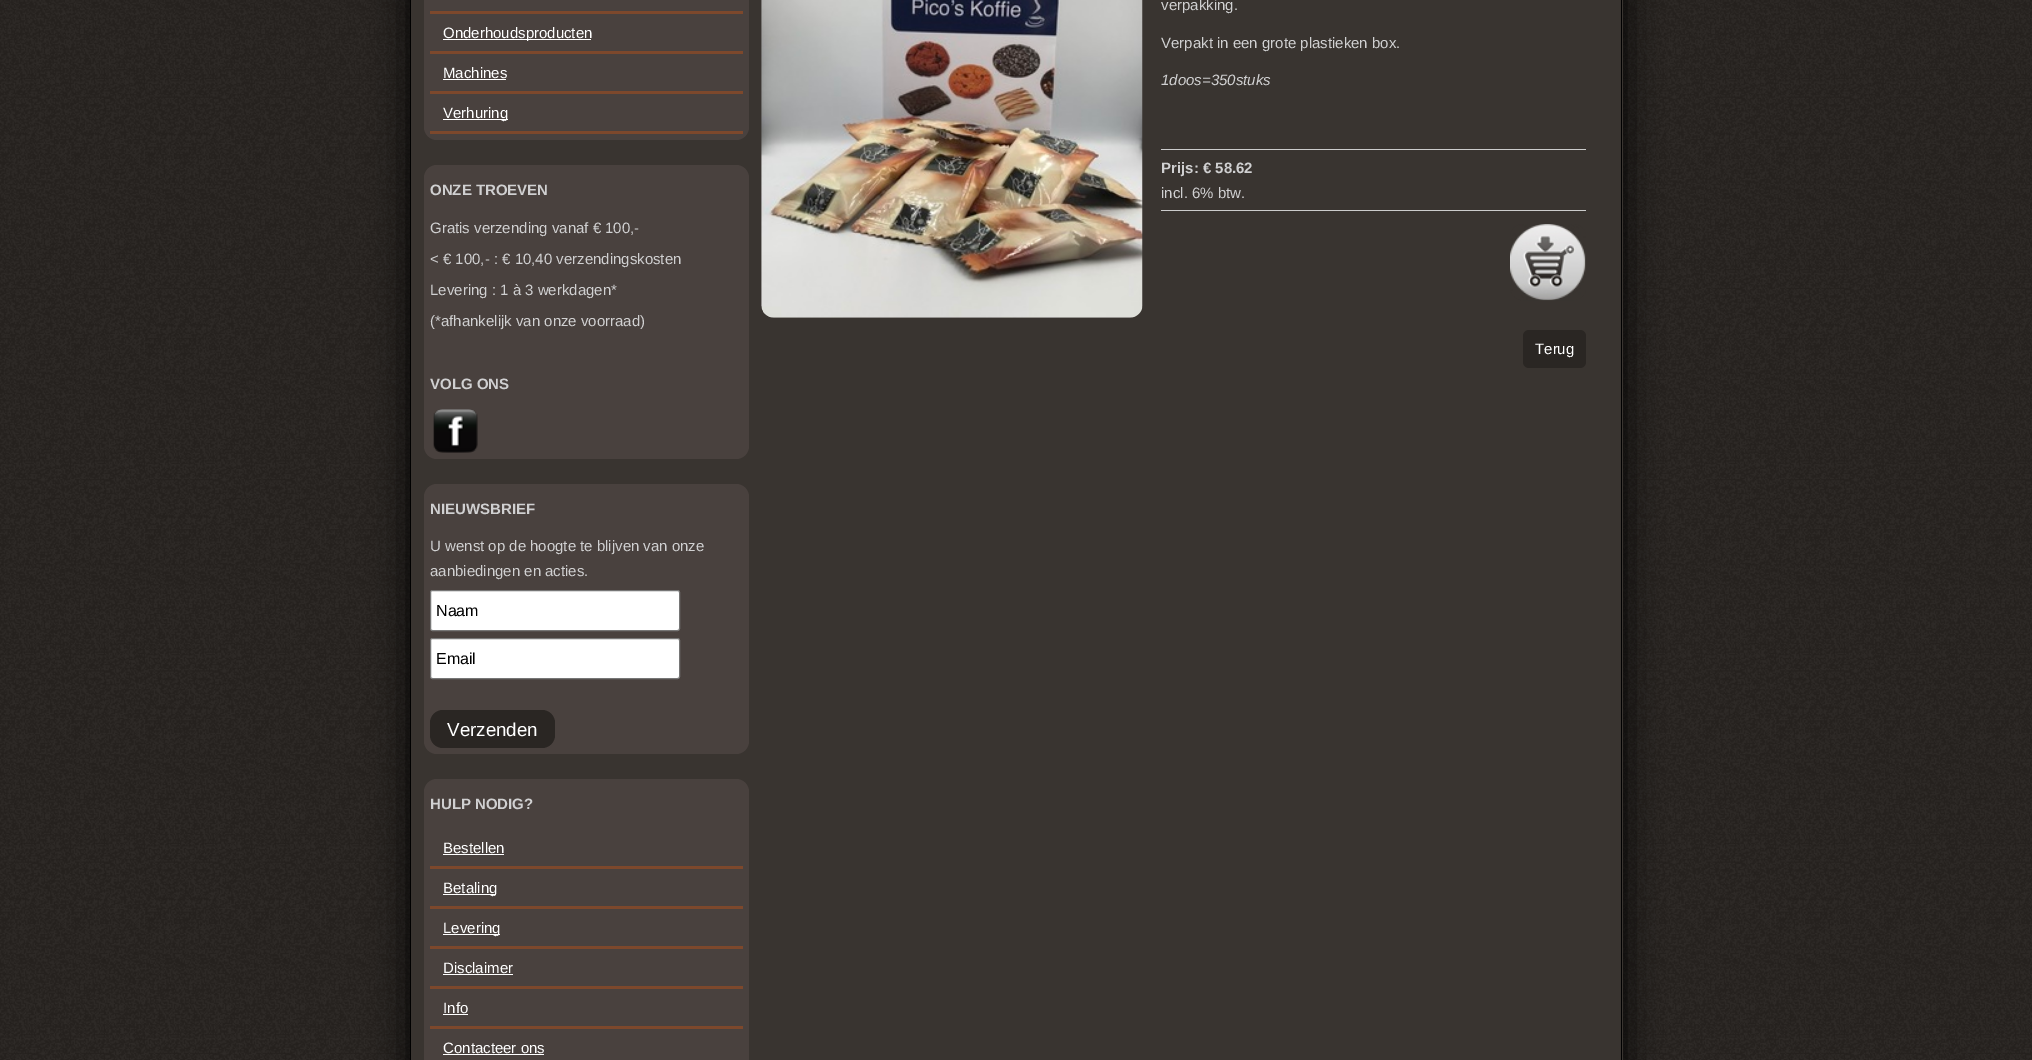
%!PS-Adobe-3.0
%%BoundingBox: 0 0 2032 1060
%%LanguageLevel: 3
%%Pages: 1
%%EndComments
%%BeginProlog
/f { fill } bind def
/S { stroke } bind def
/q { gsave } bind def
/Q { grestore } bind def
/fn { [ exch dup neg 0 0 3 -1 roll 0 0 ] selectfont } def
/tx { moveto show } def
/bx { rectfill } def
/al { dup .setfillconstantalpha .setstrokeconstantalpha } def
/rr { 5 dict begin { /r /h /w /y /x } { exch def } forall
  x r add y moveto x w add y 2 copy h add r arct x w add y h add x 1 index r arct
  x y h add x y r arct x y 2 copy exch w add exch r arct closepath end } def
/sh { 12 dict begin { /a /b /q /h /w /y /x } { exch def } forall gsave /was 0 def
  9 -2 -9 { dup b mul 4 div /e exch def 1 sub .425 mul 2.718 exch exp 1 add a .99 .min exch div /now exch def
    1 1 now sub 1 was sub div sub al /was now def
    w h .min e 2 mul add 0 gt { x e sub y e sub w e 2 mul add h e 2 mul add
      q e add b .6 mul add w h .min 2 div e add .min 0 .max rr fill } if } for grestore end } def
/im { 5 dict begin { /h /w /y /x /name } { exch def } forall
  gsave x y translate w h scale
  w h 8 [w 0 0 h 0 0] name (r) file false 3 colorimage grestore end } def
%%EndProlog
%%BeginSetup
<< /PageSize [2032 1060] /PageUsesTransparency true >> setpagedevice
%%EndSetup
%%Page: 1 1
0 .pushpdf14devicefilter
0 1060 translate 1 -1 scale
4 setmiterlimit
1 setgray
0 0 2032 1060 bx
(image0.raw) 0 0 2032 1060 im
0 setgray
410 -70 1213 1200 13 19 1 sh
0.224 0.204 0.188 setrgbcolor
411 0 1212 1060 bx
0 setgray
1621 0 1 1060 bx
410 0 1 1060 bx
0.286 0.255 0.243 setrgbcolor
424 -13 325 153 13 rr f
0.49 0.282 0.173 setrgbcolor
430 11 313 3 bx
430 51 313 3 bx
1 setgray
443 39 148 1 bx
/LiberationSans-Regular 15 fn
(Onderhoudsproducten) 443 38 tx
0.49 0.282 0.173 setrgbcolor
430 91 313 3 bx
1 setgray
(Machines) 443 78 tx
443 79 63 1 bx
0.49 0.282 0.173 setrgbcolor
430 131 313 3 bx
1 setgray
443 119 65 1 bx
(Verhuring) 443 118 tx
0.286 0.255 0.243 setrgbcolor
424 165 325 294 13 rr f
/LiberationSans-Bold 15 fn
0.816 0.816 0.82 setrgbcolor
(ONZE TROEVEN) 430 195 tx
/LiberationSans-Regular 15 fn
(Gratis verzending vanaf € 100,-) 430 233 tx
(< € 100,- : € 10,40 verzendingskosten) 430 264 tx
(Levering : 1 à 3 werkdagen*) 430 295 tx
(\(*afhankelijk van onze voorraad\)) 430 326 tx
/LiberationSans-Bold 15 fn
(VOLG ONS) 430 389 tx
(image1.raw) 433 409 45 44 im
0.286 0.255 0.243 setrgbcolor
424 484 325 270 13 rr f
0.816 0.816 0.82 setrgbcolor
(NIEUWSBRIEF) 430 514 tx
/LiberationSans-Regular 15 fn
(U wenst op de hoogte te blijven van onze) 430 551 tx
(aanbiedingen en acties.) 430 576 tx
1 setgray
430.5 590.5 249 40 2 rr q f Q
0.463 setgray
S
/LiberationSans-Regular 16 fn
0 setgray
(Naam) 436 616 tx
1 setgray
430.5 638.5 249 40 2 rr q f Q
0.463 setgray
S
0 setgray
(Email) 436 664 tx
0.165 0.149 0.137 setrgbcolor
430 710 125 38 13 rr f
/LiberationSans-Regular 18.75 fn
1 setgray
(Verzenden) 447 736 tx
0.286 0.255 0.243 setrgbcolor
424 779 325 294 13 rr f
/LiberationSans-Bold 15 fn
0.816 0.816 0.82 setrgbcolor
(HULP NODIG?) 430 809 tx
0.49 0.282 0.173 setrgbcolor
430 866 313 3 bx
/LiberationSans-Regular 15 fn
1 setgray
(Bestellen) 443 853 tx
443 854 61 1 bx
0.49 0.282 0.173 setrgbcolor
430 906 313 3 bx
1 setgray
443 894 53 1 bx
(Betaling) 443 893 tx
0.49 0.282 0.173 setrgbcolor
430 946 313 3 bx
1 setgray
443 934 57 1 bx
(Levering) 443 933 tx
0.49 0.282 0.173 setrgbcolor
430 986 313 3 bx
1 setgray
(Disclaimer) 443 973 tx
443 974 70 1 bx
0.49 0.282 0.173 setrgbcolor
430 1026 313 3 bx
1 setgray
(Info) 443 1013 tx
443 1014 25 1 bx
(Contacteer ons) 443 1053 tx
443 1054 101 1 bx
(image2.raw) 761 0 382 318 im
0.816 0.816 0.82 setrgbcolor
(verpakking.) 1161 10 tx
(Verpakt in een grote plastieken box.) 1161 48 tx
/LiberationSans-Italic 15 fn
(1doos=350stuks) 1161 85 tx
0.8 setgray
1161 149 425 1 bx
1161 210 425 1 bx
/LiberationSans-Bold 15 fn
0.816 0.816 0.82 setrgbcolor
(Prijs: € 58.62) 1161 173 tx
/LiberationSans-Regular 15 fn
(incl. 6% btw.) 1161 198 tx
(image3.raw) 1510 224 76 77 im
0.165 0.149 0.137 setrgbcolor
1523 330 63 38 6 rr f
1 setgray
(Terug) 1535 354 tx
.poppdf14devicefilter showpage
%%EOF
